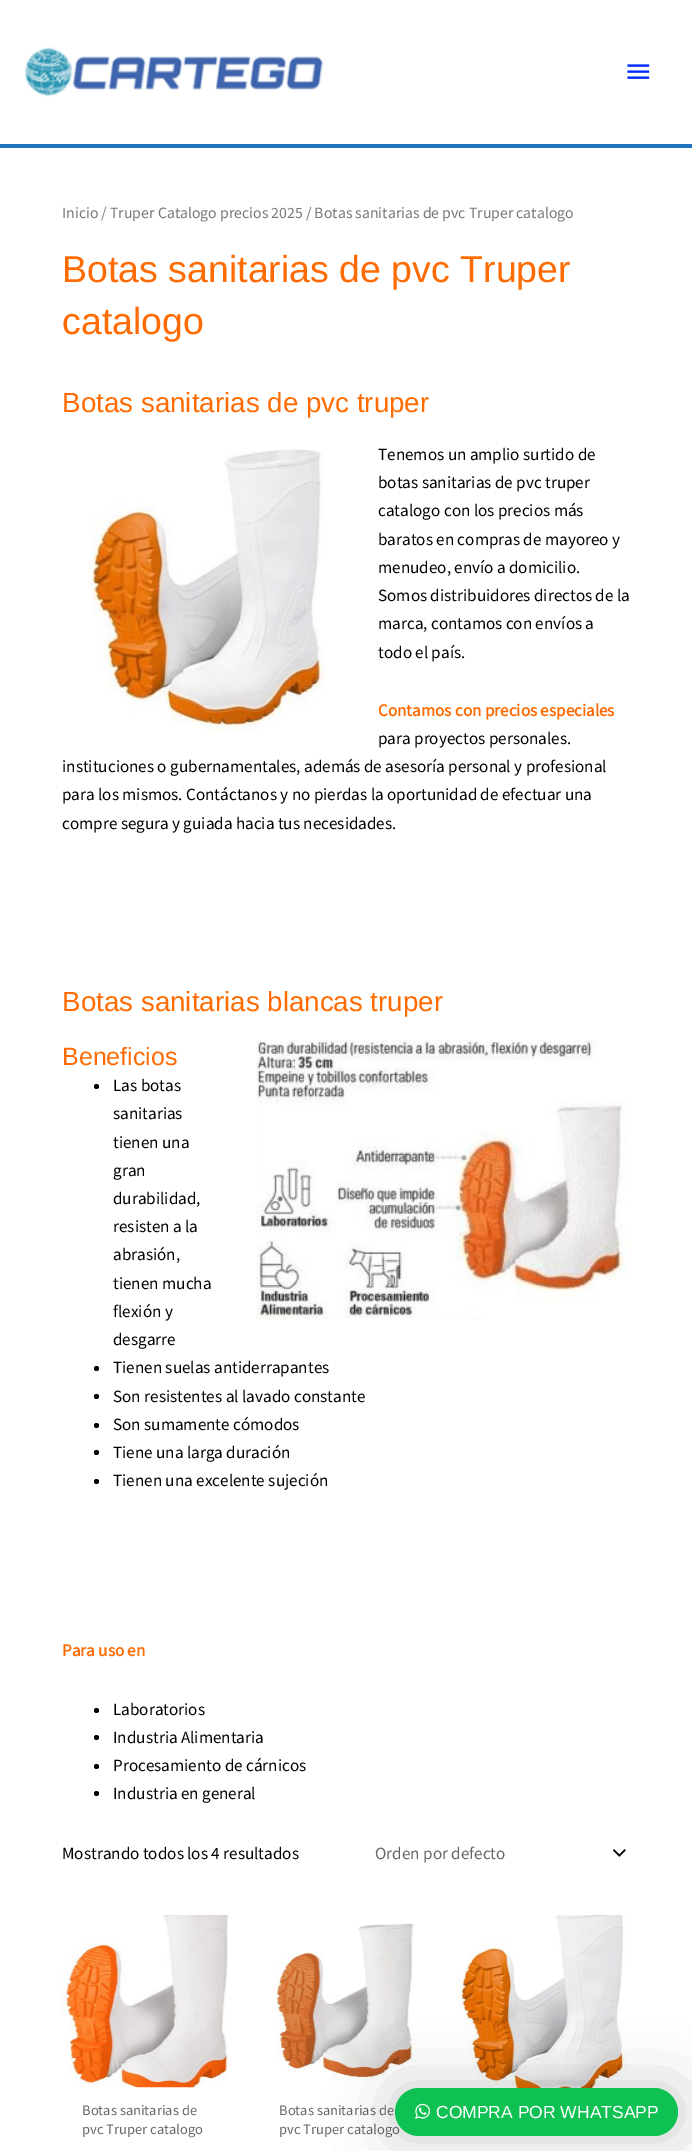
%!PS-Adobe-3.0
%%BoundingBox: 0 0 692 2151
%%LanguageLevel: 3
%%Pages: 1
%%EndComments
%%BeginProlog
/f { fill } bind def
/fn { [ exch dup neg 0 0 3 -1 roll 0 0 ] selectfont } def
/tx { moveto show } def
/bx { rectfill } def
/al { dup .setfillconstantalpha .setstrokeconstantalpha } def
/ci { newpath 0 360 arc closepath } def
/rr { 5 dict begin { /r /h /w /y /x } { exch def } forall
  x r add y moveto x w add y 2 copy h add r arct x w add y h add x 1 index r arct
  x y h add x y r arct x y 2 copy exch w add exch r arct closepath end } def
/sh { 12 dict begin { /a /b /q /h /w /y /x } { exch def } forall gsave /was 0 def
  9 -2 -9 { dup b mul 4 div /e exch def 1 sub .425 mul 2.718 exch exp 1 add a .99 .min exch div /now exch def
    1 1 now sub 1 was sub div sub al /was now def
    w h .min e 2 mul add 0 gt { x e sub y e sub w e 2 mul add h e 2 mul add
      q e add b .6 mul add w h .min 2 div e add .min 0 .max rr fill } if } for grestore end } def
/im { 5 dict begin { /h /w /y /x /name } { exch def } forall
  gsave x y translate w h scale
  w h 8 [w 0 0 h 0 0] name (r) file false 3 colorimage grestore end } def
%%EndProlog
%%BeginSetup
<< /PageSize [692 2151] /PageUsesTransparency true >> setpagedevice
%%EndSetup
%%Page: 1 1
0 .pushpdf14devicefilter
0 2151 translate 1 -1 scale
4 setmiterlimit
1 setgray
0 0 692 2151 bx
0.118 0.451 0.745 setrgbcolor
0 144 692 4 bx
(image0.raw) 25 47 298 50 im
(image1.raw) 627 64 23 15 im
/SourceSansPro-Regular 15.75 fn
0.467 setgray
(Inicio / Truper Catalogo precios 2025 / Botas sanitarias de pvc Truper catalogo) 62 218 tx
/LiberationSans-Regular 37.5 fn
1 0.42 0.004 setrgbcolor
(Botas sanitarias de pvc Truper) 62 282 tx
(catalogo) 62 334 tx
/LiberationSans-Regular 27.75 fn
(Botas sanitarias de pvc truper) 62 412 tx
(image2.raw) 88 449 238 284 im
/SourceSansPro-Regular 17.1 fn
0 setgray
(Tenemos un amplio surtido de) 378 460 tx
(botas sanitarias de pvc truper) 378 488 tx
(catalogo con los precios más) 378 516 tx
(baratos en compras de mayoreo y) 378 545 tx
(menudeo, envío a domicilio.) 378 573 tx
(Somos distribuidores directos de la) 378 601 tx
(marca, contamos con envíos a) 378 629 tx
(todo el país.) 378 658 tx
/SourceSansPro-Bold 17.1 fn
1 0.42 0.004 setrgbcolor
(Contamos con precios especiales) 378 716 tx
/SourceSansPro-Regular 17.1 fn
0 setgray
(para proyectos personales.) 378 744 tx
(instituciones o gubernamentales, además de asesoría personal y profesional) 62 772 tx
(para los mismos. Contáctanos y no pierdas la oportunidad de efectuar una) 62 800 tx
(compre segura y guiada hacia tus necesidades.) 62 829 tx
/LiberationSans-Regular 27.75 fn
1 0.42 0.004 setrgbcolor
(Botas sanitarias blancas truper) 62 1011 tx
/LiberationSans-Regular 25 fn
(Beneficios) 62 1065 tx
(image3.raw) 256 1040 375 279 im
0 setgray
96.5 1086.5 2.5 ci f
/SourceSansPro-Regular 17.1 fn
(Las botas) 113 1091 tx
(sanitarias) 113 1119 tx
(tienen una) 113 1148 tx
(gran) 113 1176 tx
(durabilidad,) 113 1204 tx
(resisten a la) 113 1232 tx
(abrasión,) 113 1260 tx
(tienen mucha) 113 1289 tx
(flexión y) 113 1317 tx
(desgarre) 113 1345 tx
96.5 1368.5 2.5 ci f
(Tienen suelas antiderrapantes) 113 1373 tx
96.5 1396.5 2.5 ci f
(Son resistentes al lavado constante) 113 1402 tx
96.5 1425.5 2.5 ci f
(Son sumamente cómodos) 113 1430 tx
96.5 1452.5 2.5 ci f
(Tiene una larga duración) 113 1458 tx
96.5 1481.5 2.5 ci f
(Tienen una excelente sujeción) 113 1486 tx
/SourceSansPro-Bold 17.1 fn
1 0.42 0.004 setrgbcolor
(Para uso en) 62 1656 tx
0 setgray
96.5 1710.5 2.5 ci f
/SourceSansPro-Regular 17.1 fn
(Laboratorios) 113 1715 tx
96.5 1737.5 2.5 ci f
(Industria Alimentaria) 113 1743 tx
96.5 1766.5 2.5 ci f
(Procesamiento de cárnicos) 113 1771 tx
96.5 1793.5 2.5 ci f
(Industria en general) 113 1799 tx
(Mostrando todos los 4 resultados) 62 1859 tx
(image4.raw) 613 1849 13 8 im
0.4 setgray
(Orden por defecto) 375 1859 tx
(image5.raw) 456 1915 173 173 im
(image6.raw) 61 1915 168 173 im
/SourceSansPro-Regular 14.5 fn
(Botas sanitarias de) 82 2115 tx
(pvc Truper catalogo) 82 2134 tx
(image7.raw) 276 1923 139 158 im
(Botas sanitarias de) 279 2115 tx
(pvc Truper catalogo) 279 2134 tx
0 setgray
395 2088 283 48 24 31 0.2 sh
0.059 0.757 0.325 setrgbcolor
395 2088 283 48 24 rr f
(image8.raw) 415 2103 15 16 im
/LiberationSans-Regular 17.5 fn
1 setgray
(COMPRA POR WHATSAPP) 436 2118 tx
.poppdf14devicefilter showpage
%%EOF
